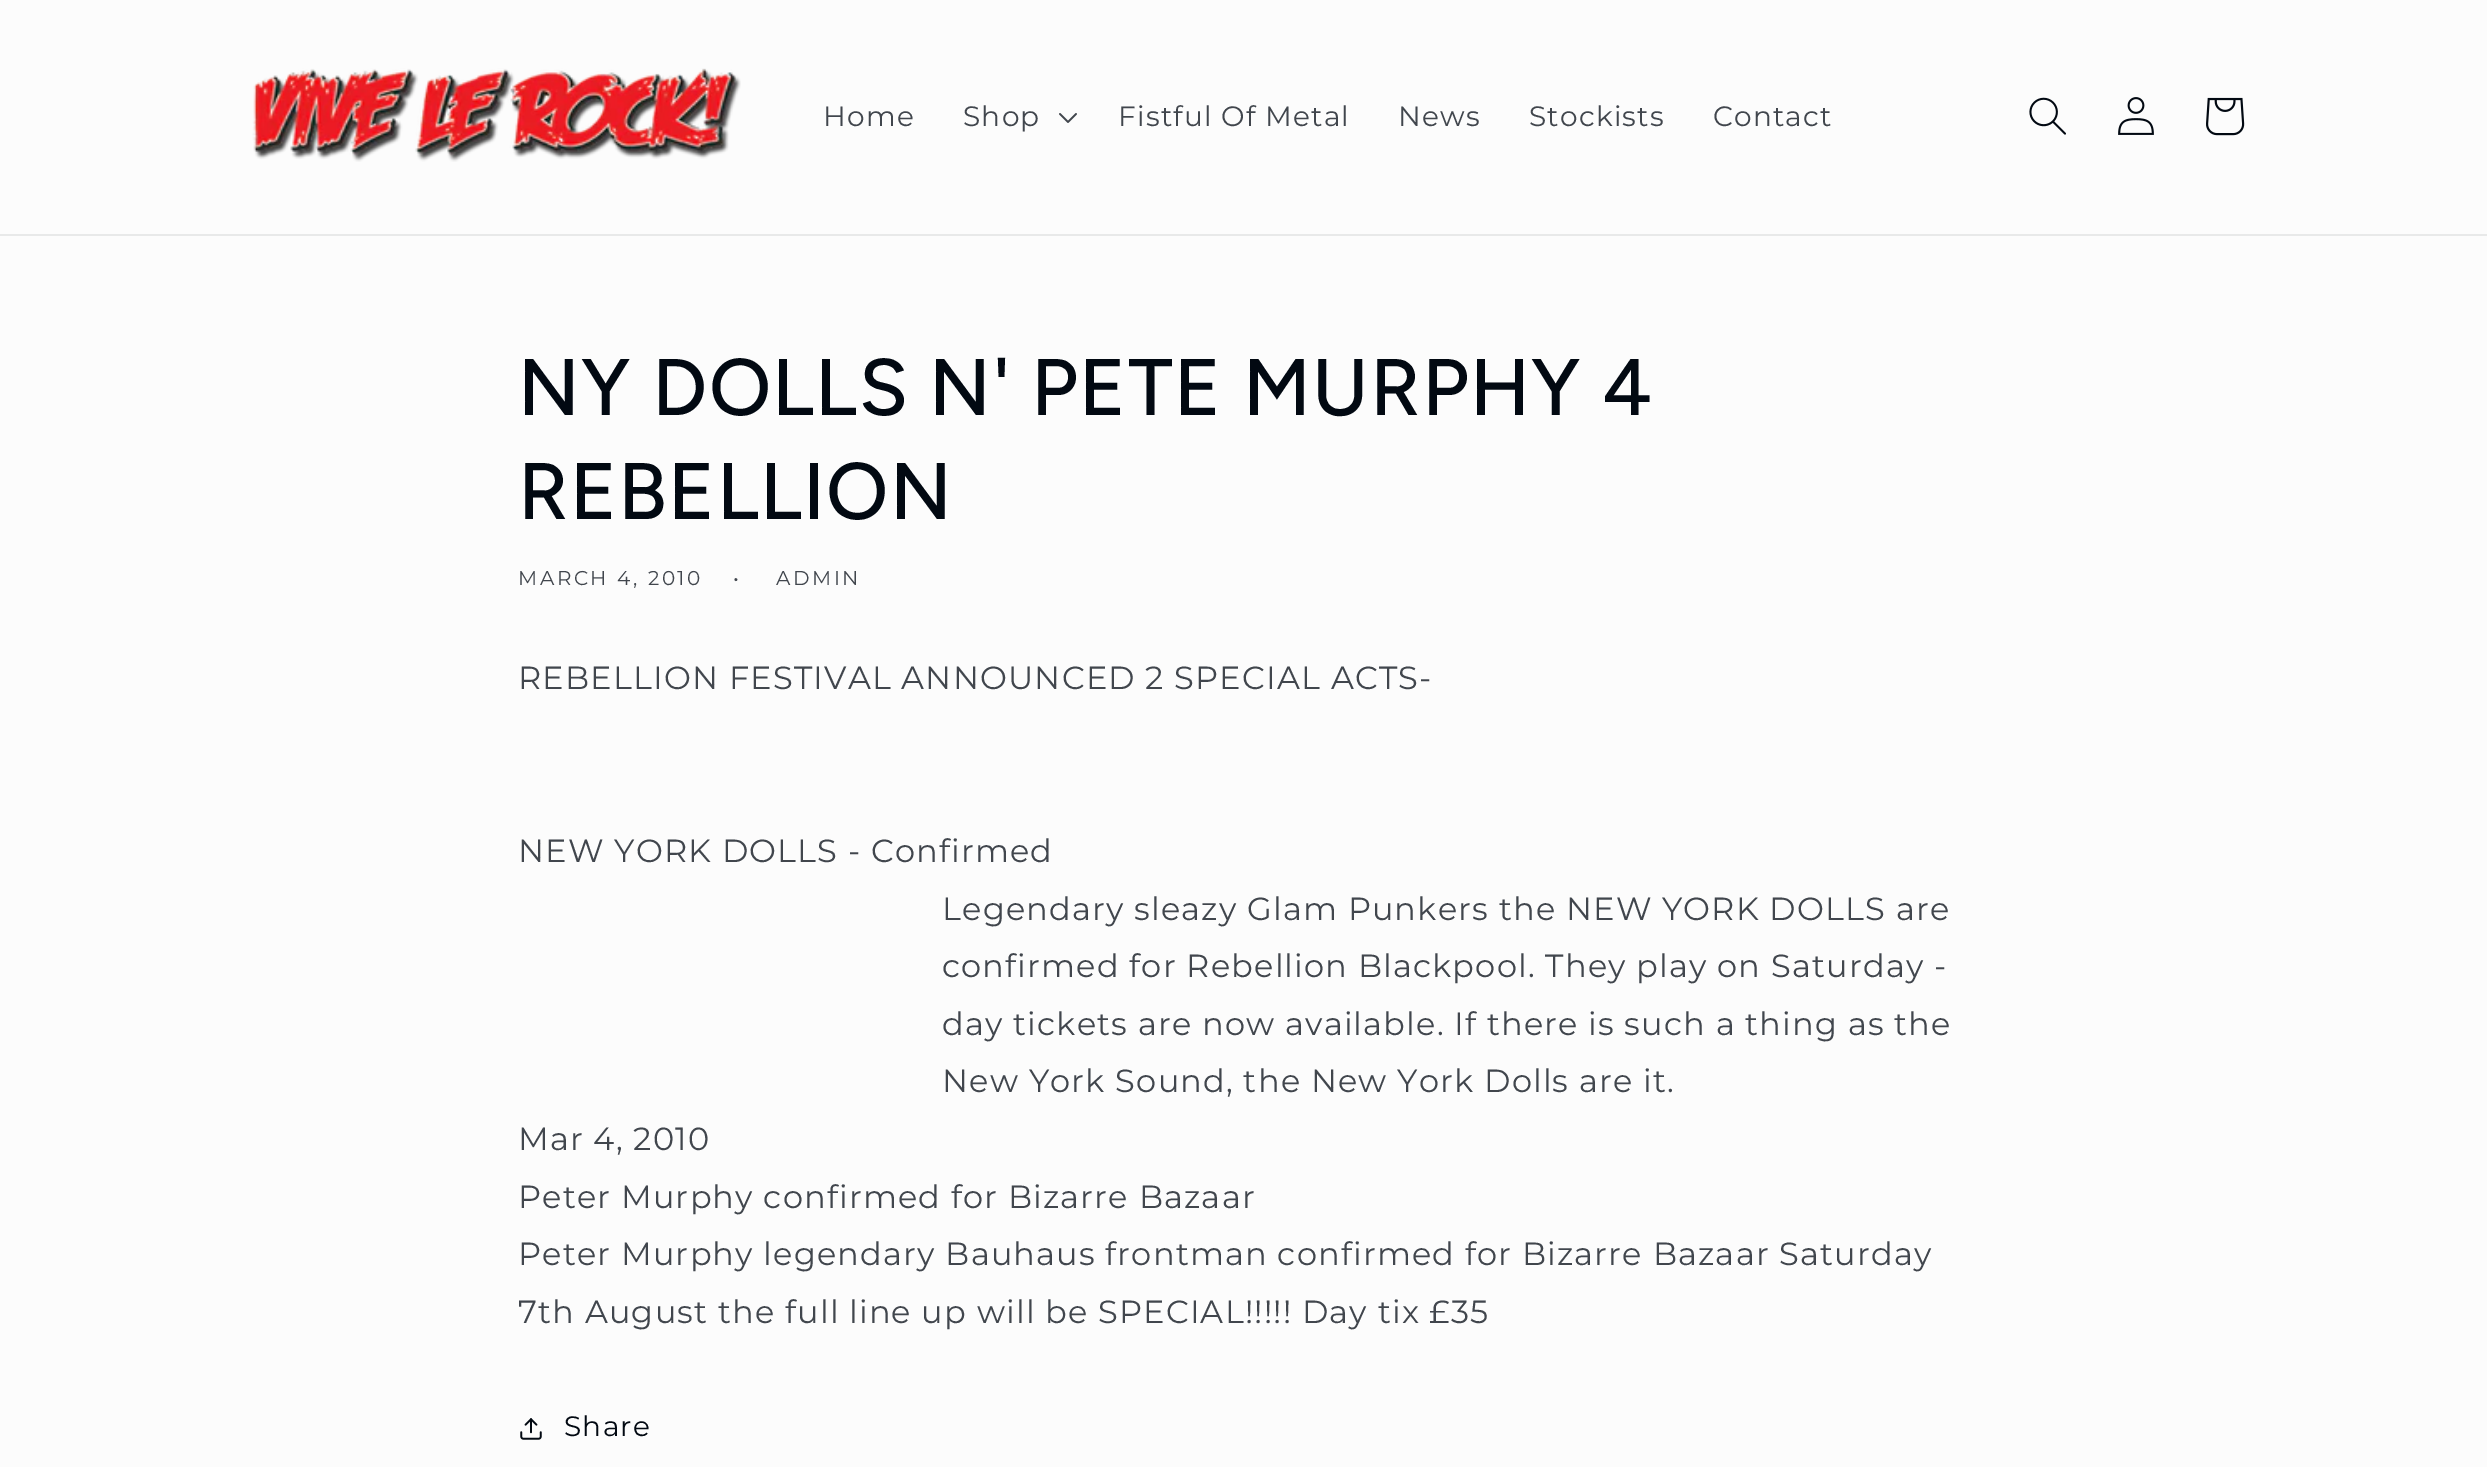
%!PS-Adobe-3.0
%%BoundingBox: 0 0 2487 1467
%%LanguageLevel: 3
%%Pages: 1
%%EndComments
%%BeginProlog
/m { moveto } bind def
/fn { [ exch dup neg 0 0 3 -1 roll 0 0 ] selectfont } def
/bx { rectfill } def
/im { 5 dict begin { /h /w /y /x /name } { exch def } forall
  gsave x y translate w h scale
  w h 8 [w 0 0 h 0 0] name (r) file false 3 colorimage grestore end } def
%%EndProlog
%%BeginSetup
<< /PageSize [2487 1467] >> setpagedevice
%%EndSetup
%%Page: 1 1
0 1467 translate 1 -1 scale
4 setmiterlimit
0.988 setgray
0 0 2487 1467 bx
0.91 0.914 0.914 setrgbcolor
0 234 2487 2 bx
(image0.raw) 252 68 489 94 im
/Montserrat-Regular 28 fn
0.255 0.275 0.302 setrgbcolor
823 126 m 1.2 0 (Home) ashow
963 126 m 1.2 0 (Shop) ashow
(image1.raw) 1059 113 18 10 im
1118 126 m 1.2 0 (Fistful Of Metal) ashow
1398 126 m 1.2 0 (News) ashow
1529 126 m 1.2 0 (Stockists) ashow
1713 126 m 1.2 0 (Contact) ashow
(image2.raw) 2029 97 37 38 im
(image3.raw) 2118 97 36 38 im
(image4.raw) 2206 97 39 39 im
/Figtree-Medium 80 fn
0.008 0.035 0.071 setrgbcolor
518 415 m 1.2 0 (NY DOLLS N' PETE MURPHY 4) ashow
518 519 m 1.2 0 (REBELLION) ashow
/Montserrat-Regular 20 fn
0.255 0.275 0.302 setrgbcolor
518 585 m 2.6 0 (MARCH 4, 2010) ashow
733 585 m 2.6 0 (•) ashow
776 585 m 2.6 0 (ADMIN) ashow
/Montserrat-Regular 32 fn
518 689 m 1.2 0 (REBELLION FESTIVAL ANNOUNCED 2 SPECIAL ACTS-) ashow
518 862 m 1.2 0 (NEW YORK DOLLS - Confirmed) ashow
942 920 m 1.2 0 (Legendary sleazy Glam Punkers the NEW YORK DOLLS are) ashow
942 977 m 1.2 0 (confirmed for Rebellion Blackpool. They play on Saturday -) ashow
942 1035 m 1.2 0 (day tickets are now available. If there is such a thing as the) ashow
942 1092 m 1.2 0 (New York Sound, the New York Dolls are it.) ashow
518 1150 m 1.2 0 (Mar 4, 2010) ashow
518 1208 m 1.2 0 (Peter Murphy confirmed for Bizarre Bazaar) ashow
518 1265 m 1.2 0 (Peter Murphy legendary Bauhaus frontman confirmed for Bizarre Bazaar Saturday) ashow
518 1323 m 1.2 0 (7th August the full line up will be SPECIAL!!!!! Day tix £35) ashow
(image5.raw) 520 1418 22 22 im
/Montserrat-Regular 28 fn
0.008 0.035 0.071 setrgbcolor
564 1436 m 1.2 0 (Share) ashow
showpage
%%EOF
